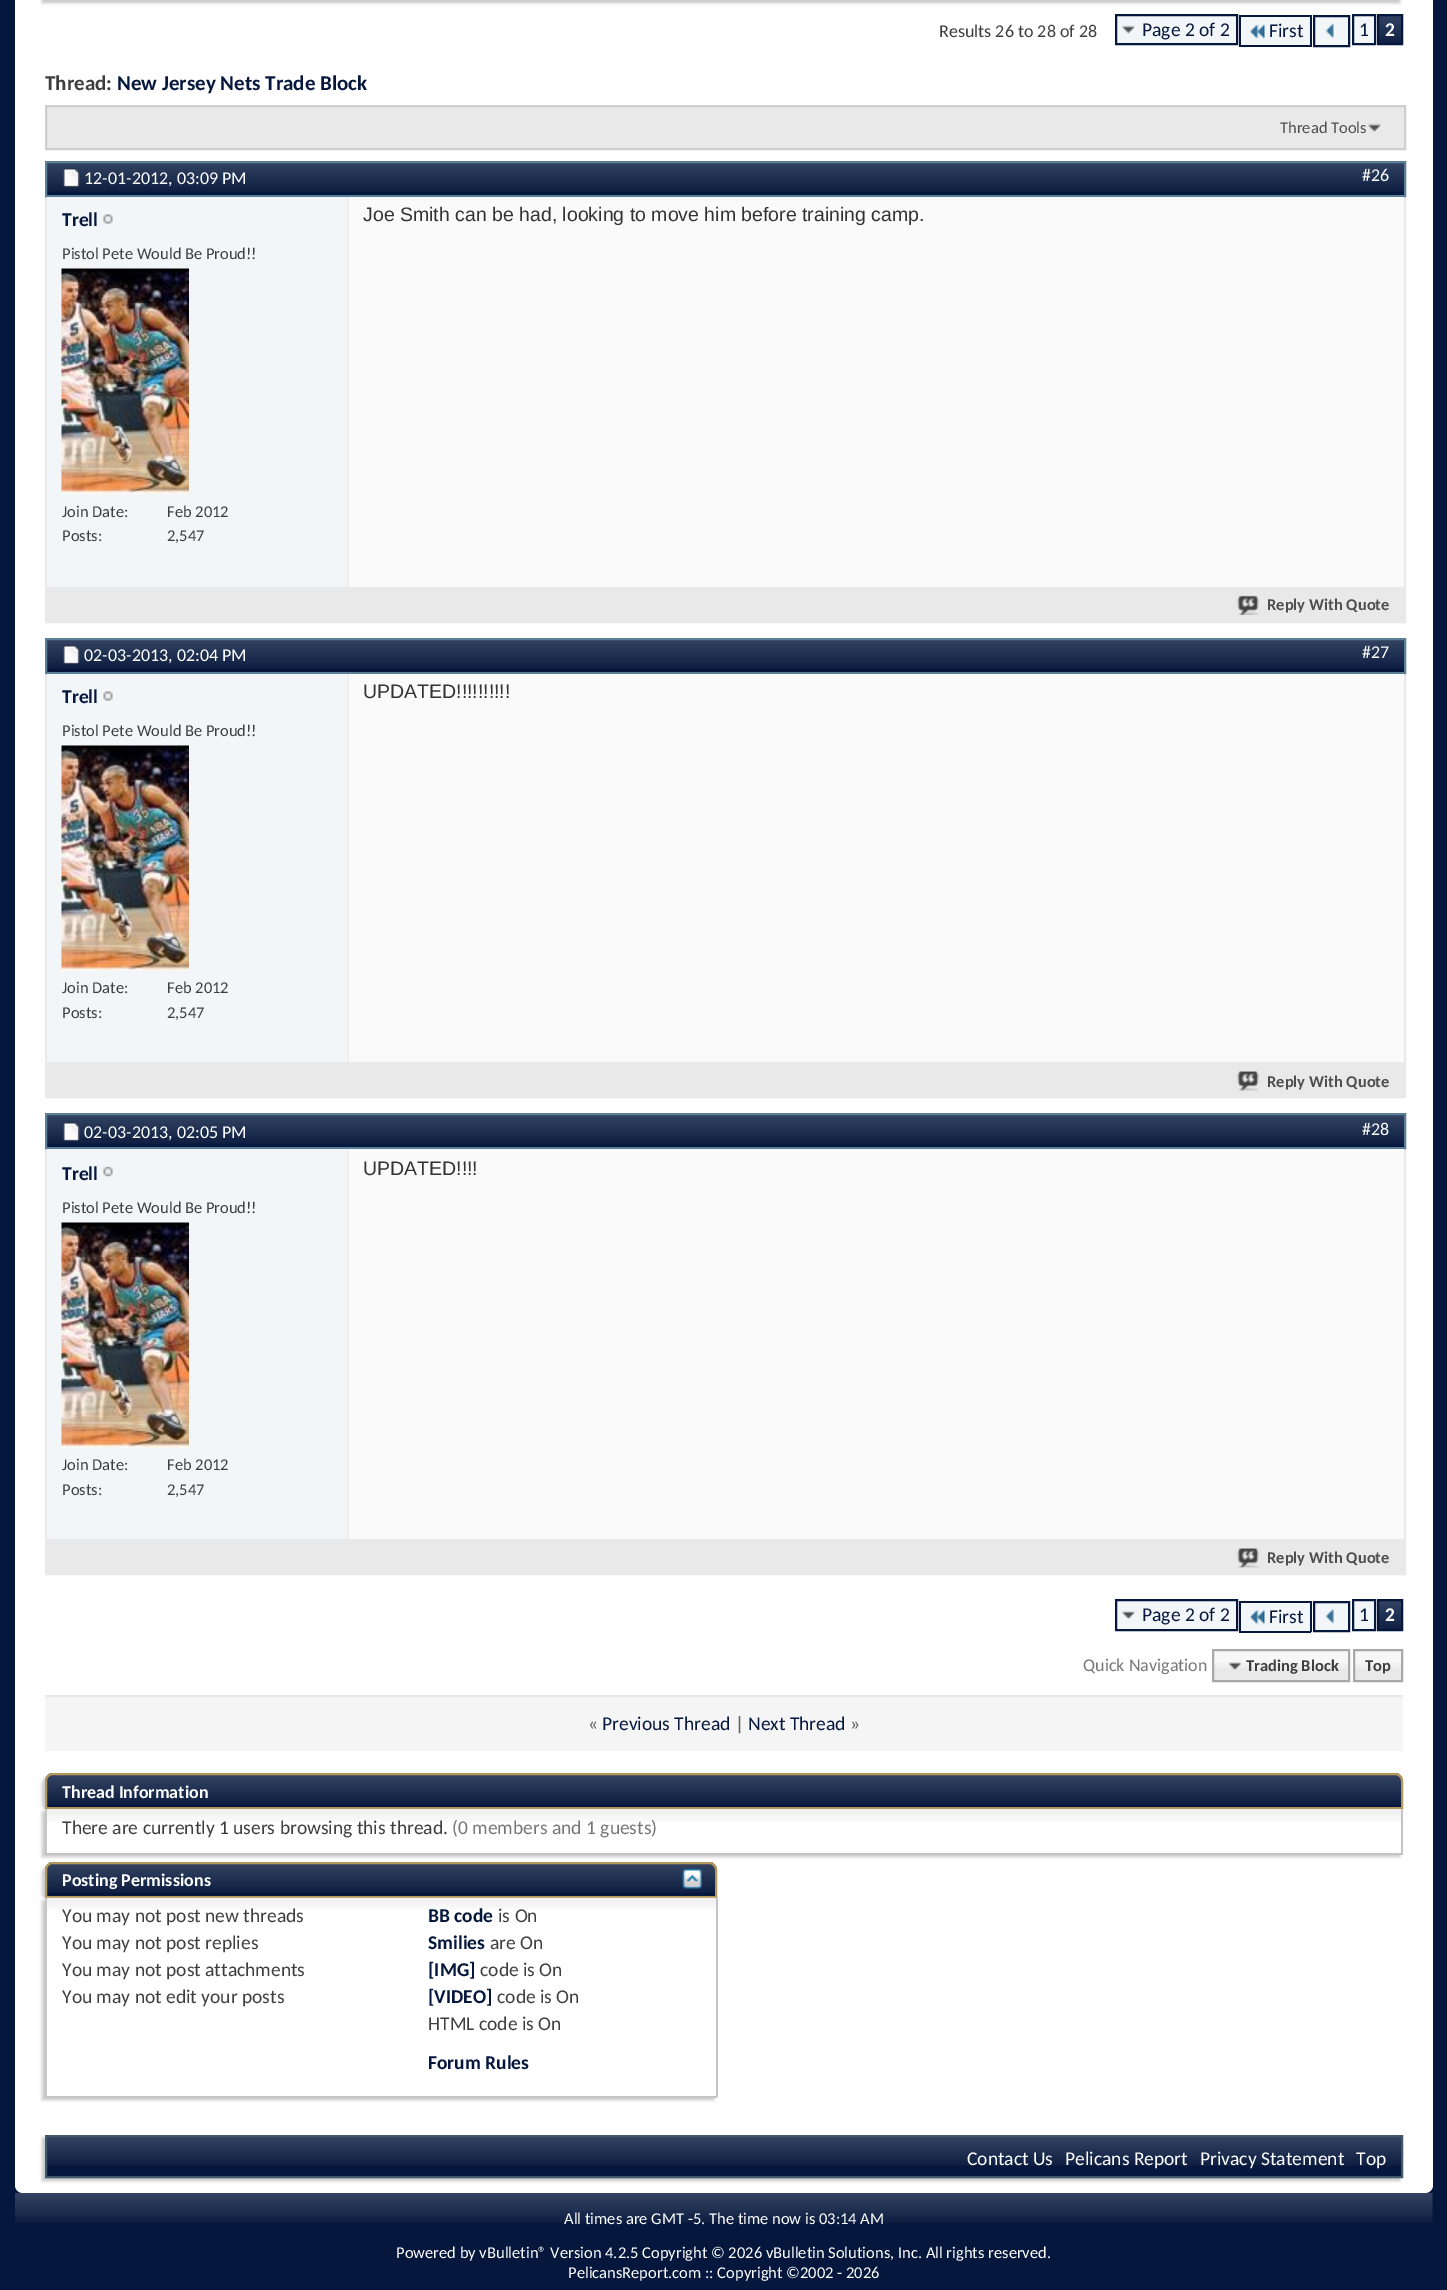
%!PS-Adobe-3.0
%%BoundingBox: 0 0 1447 2290
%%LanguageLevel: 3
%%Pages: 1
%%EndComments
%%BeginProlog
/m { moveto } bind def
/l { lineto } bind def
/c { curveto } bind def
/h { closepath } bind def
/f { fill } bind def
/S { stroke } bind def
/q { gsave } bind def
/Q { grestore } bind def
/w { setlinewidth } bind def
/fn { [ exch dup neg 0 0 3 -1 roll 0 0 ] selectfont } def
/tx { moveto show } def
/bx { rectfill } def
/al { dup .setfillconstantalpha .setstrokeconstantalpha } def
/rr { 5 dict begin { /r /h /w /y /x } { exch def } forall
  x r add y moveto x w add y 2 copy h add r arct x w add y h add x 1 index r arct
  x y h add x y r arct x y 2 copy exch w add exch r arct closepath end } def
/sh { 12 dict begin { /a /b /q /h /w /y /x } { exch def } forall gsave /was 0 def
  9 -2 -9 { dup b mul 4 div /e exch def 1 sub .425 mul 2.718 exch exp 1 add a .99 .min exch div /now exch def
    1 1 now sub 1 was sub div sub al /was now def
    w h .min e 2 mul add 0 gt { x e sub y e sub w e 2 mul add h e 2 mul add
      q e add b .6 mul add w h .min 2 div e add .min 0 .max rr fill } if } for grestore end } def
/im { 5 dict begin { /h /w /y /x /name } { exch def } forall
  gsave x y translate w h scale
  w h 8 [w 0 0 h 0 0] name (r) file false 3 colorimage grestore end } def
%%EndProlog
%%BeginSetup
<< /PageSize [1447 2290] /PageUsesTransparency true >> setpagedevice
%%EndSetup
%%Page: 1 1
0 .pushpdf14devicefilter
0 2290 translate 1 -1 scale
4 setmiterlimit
0.02 0.09 0.235 setrgbcolor
0 0 1447 2290 bx
1 setgray
15 -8 1418 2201 8 rr f
0.784 setgray
42 -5 1358 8 0 1.5 1 sh
/Carlito-Regular 18 fn
0.243 setgray
(Results 26 to 28 of 28) 939 37 tx
0.949 0.965 0.973 setrgbcolor
1117 16 119 27 bx
(image0.raw) 1121 25 15 9 im
0.02 0.09 0.235 setrgbcolor
2 w
1116 15 121 29 rectstroke
/Carlito-Regular 19.5 fn
(Page 2 of 2) 1142 36 tx
0.949 0.965 0.973 setrgbcolor
1241 17 69 28 bx
(image1.raw) 1249 24 16 16 im
0.02 0.09 0.235 setrgbcolor
(First) 1269 37 tx
1239 15 72 2 bx
1239 45 30 2 bx
1239 15 2 32 bx
1310 15 2 32 bx
1269 45 42 2 bx
0.949 0.965 0.973 setrgbcolor
1314 16 m 1349 16 l 1349 46 l 1314 46 l h q f Q
0.02 0.09 0.235 setrgbcolor
S
(image2.raw) 1325 23 9 15 im
0.949 0.965 0.973 setrgbcolor
1353 15 m 1375 15 l 1375 44 l 1353 44 l h q f Q
0.02 0.09 0.235 setrgbcolor
S
(1) 1359 36 tx
1379 16 22 27 bx
(image3.raw) 1379 16 22 27 im
1378 15 24 29 rectstroke
/Carlito-Bold 19.5 fn
1 setgray
(2) 1385 36 tx
/Carlito-Bold 21 fn
0.243 setgray
(Thread:) 45 90 tx
0.02 0.09 0.235 setrgbcolor
(New Jersey Nets Trade Block) 117 90 tx
0.914 setgray
46 106 m 1405 106 l 1405 149 l 46 149 l h q f Q
0.808 setgray
S
(image4.raw) 1368 123 14 10 im
/Carlito-Regular 16.5 fn
0.306 setgray
(Thread Tools) 1280 133 tx
0.914 setgray
46 162 1359 460 rectstroke
0.02 0.09 0.235 setrgbcolor
47 163 1357 32 bx
(image5.raw) 47 163 1357 29 im
0.353 0.498 0.592 setrgbcolor
46 162 1359 34 rectstroke
(image6.raw) 63 168 17 20 im
/Carlito-Regular 18 fn
1 setgray
(12-01-2012, 03:09 PM) 84 184 tx
(#26) 1362 181 tx
0.949 0.965 0.973 setrgbcolor
47 197 300 390 bx
/Carlito-Bold 19.5 fn
0.02 0.09 0.235 setrgbcolor
(Trell) 62 226 tx
(image7.raw) 103 214 10 10 im
/Carlito-Regular 16.5 fn
0.243 setgray
(Pistol Pete Would Be Proud!!) 62 259 tx
(image8.raw) 61 268 128 226 im
(Join Date:) 62 517 tx
(Feb 2012) 167 517 tx
(Posts:) 62 541 tx
(2,547) 167 541 tx
0.98 setgray
349 197 1055 390 bx
0.937 setgray
347 197 2 390 bx
/LiberationSans-Regular 19.5 fn
0.2 setgray
(Joe Smith can be had, looking to move him before training camp.) 363 221 tx
0.914 setgray
47 587 1357 34 bx
(image9.raw) 1237 595 22 20 im
/Carlito-Bold 16.5 fn
0.306 setgray
(Reply With Quote) 1267 610 tx
0.914 setgray
46 639 1359 458 rectstroke
0.02 0.09 0.235 setrgbcolor
47 640 1357 32 bx
(image5.raw) 47 640 1357 29 im
0.353 0.498 0.592 setrgbcolor
46 639 1359 34 rectstroke
(image6.raw) 63 645 17 20 im
/Carlito-Regular 18 fn
1 setgray
(02-03-2013, 02:04 PM) 84 661 tx
(#27) 1362 658 tx
0.949 0.965 0.973 setrgbcolor
47 674 300 388 bx
/Carlito-Bold 19.5 fn
0.02 0.09 0.235 setrgbcolor
(Trell) 62 703 tx
(image7.raw) 103 691 10 10 im
/Carlito-Regular 16.5 fn
0.243 setgray
(Pistol Pete Would Be Proud!!) 62 736 tx
(image8.raw) 61 745 128 226 im
(Join Date:) 62 993 tx
(Feb 2012) 167 993 tx
(Posts:) 62 1018 tx
(2,547) 167 1018 tx
0.98 setgray
349 674 1055 388 bx
0.937 setgray
347 674 2 388 bx
/LiberationSans-Regular 19.5 fn
0.2 setgray
(UPDATED!!!!!!!!!!) 363 698 tx
0.914 setgray
47 1062 1357 34 bx
(image10.raw) 1237 1071 22 20 im
/Carlito-Bold 16.5 fn
0.306 setgray
(Reply With Quote) 1267 1087 tx
0.914 setgray
46 1114 1359 460 rectstroke
0.02 0.09 0.235 setrgbcolor
47 1115 1357 32 bx
(image11.raw) 47 1115 1357 30 im
0.353 0.498 0.592 setrgbcolor
46 1114 1359 34 rectstroke
(image12.raw) 63 1122 17 20 im
/Carlito-Regular 18 fn
1 setgray
(02-03-2013, 02:05 PM) 84 1138 tx
(#28) 1362 1135 tx
0.949 0.965 0.973 setrgbcolor
47 1149 300 390 bx
/Carlito-Bold 19.5 fn
0.02 0.09 0.235 setrgbcolor
(Trell) 62 1180 tx
(image13.raw) 103 1166 10 11 im
/Carlito-Regular 16.5 fn
0.243 setgray
(Pistol Pete Would Be Proud!!) 62 1213 tx
(image8.raw) 61 1222 128 226 im
(Join Date:) 62 1470 tx
(Feb 2012) 167 1470 tx
(Posts:) 62 1495 tx
(2,547) 167 1495 tx
0.98 setgray
349 1149 1055 390 bx
0.937 setgray
347 1149 2 390 bx
/LiberationSans-Regular 19.5 fn
0.2 setgray
(UPDATED!!!!) 363 1175 tx
0.914 setgray
47 1539 1357 34 bx
(image10.raw) 1237 1548 22 20 im
/Carlito-Bold 16.5 fn
0.306 setgray
(Reply With Quote) 1267 1563 tx
0.949 0.965 0.973 setrgbcolor
1117 1601 119 28 bx
(image14.raw) 1121 1611 15 9 im
0.02 0.09 0.235 setrgbcolor
1116 1600 121 30 rectstroke
/Carlito-Regular 19.5 fn
(Page 2 of 2) 1142 1621 tx
0.949 0.965 0.973 setrgbcolor
1241 1603 69 28 bx
(image15.raw) 1249 1609 16 16 im
0.02 0.09 0.235 setrgbcolor
(First) 1269 1623 tx
1239 1601 72 2 bx
1239 1631 30 2 bx
1239 1601 2 31 bx
1310 1601 2 31 bx
1269 1631 42 2 bx
0.949 0.965 0.973 setrgbcolor
1314 1602 m 1349 1602 l 1349 1631 l 1314 1631 l h q f Q
0.02 0.09 0.235 setrgbcolor
S
(image16.raw) 1325 1609 9 15 im
0.949 0.965 0.973 setrgbcolor
1353 1600 m 1375 1600 l 1375 1630 l 1353 1630 l h q f Q
0.02 0.09 0.235 setrgbcolor
S
(1) 1359 1621 tx
1379 1601 22 28 bx
(image17.raw) 1379 1601 22 28 im
1378 1600 24 30 rectstroke
/Carlito-Bold 19.5 fn
1 setgray
(2) 1385 1621 tx
/Carlito-Regular 18 fn
0.467 setgray
(Quick Navigation) 1083 1671 tx
0.914 setgray
1214 1651 134 29 bx
(image18.raw) 1214 1651 134 17 im
1355 1651 46 29 bx
(image19.raw) 1355 1651 46 17 im
0.659 setgray
1213 1650 136 31 rectstroke
(image20.raw) 1228 1661 14 10 im
/Carlito-Bold 16.5 fn
0.243 setgray
(Trading Block) 1246 1671 tx
0.659 setgray
1354 1650 48 31 rectstroke
0.243 setgray
(Top) 1365 1671 tx
0.961 setgray
45 1697 1358 54 bx
0.906 setgray
45 1695 1358 2 bx
/Carlito-Regular 19.5 fn
0.365 setgray
(«) 588 1730 tx
0.02 0.09 0.235 setrgbcolor
(Previous Thread) 602 1730 tx
0.365 setgray
(|) 735 1730 tx
0.02 0.09 0.235 setrgbcolor
(Next Thread) 748 1730 tx
0.365 setgray
(») 850 1730 tx
0.784 setgray
42 1776 1358 36 8 1.5 1 sh
0.02 0.09 0.235 setrgbcolor
53 1773 m 1395 1773 l 1399.5 1773 1403 1776.5 1403 1781 c 1403 1809 l 45 1809 l 45 1781 l 45 1776.5 48.5 1773 53 1773 c h f
(image21.raw) 45 1774 1358 31 im
0.706 0.592 0.353 setrgbcolor
53 1774 m 1395 1774 l 1399 1774 1402 1777 1402 1781 c 1402 1808 l 46 1808 l 46 1781 l 46 1777 49 1774 53 1774 c h S
/Carlito-Bold 18 fn
1 setgray
(Thread Information) 62 1798 tx
0.784 setgray
42 1812 1358 45 0 1.5 1 sh
1 setgray
47 1809 1354 44 bx
(image22.raw) 47 1809 1354 14 im
0.769 setgray
1401 1809 2 45 bx
45 1853 1358 2 bx
45 1809 2 45 bx
/Carlito-Regular 19.5 fn
0.243 setgray
(There are currently 1 users browsing this thread.) 62 1834 tx
0.467 setgray
(\(0 members and 1 guests\)) 452 1834 tx
0.784 setgray
42 1865 672 36 8 1.5 1 sh
0.02 0.09 0.235 setrgbcolor
53 1862 m 709 1862 l 713.5 1862 717 1865.5 717 1870 c 717 1898 l 45 1898 l 45 1870 l 45 1865.5 48.5 1862 53 1862 c h f
(image23.raw) 45 1863 672 30 im
0.706 0.592 0.353 setrgbcolor
53 1863 m 709 1863 l 713 1863 716 1866 716 1870 c 716 1897 l 46 1897 l 46 1870 l 46 1866 49 1863 53 1863 c h S
/Carlito-Bold 18 fn
1 setgray
(Posting Permissions) 62 1886 tx
(image24.raw) 682 1869 20 20 im
0.784 setgray
42 1901 672 199 0 1.5 1 sh
1 setgray
47 1898 669 198 bx
(image25.raw) 45 1897 672 13 im
0.769 setgray
716 1898 2 199 bx
45 2096 672 2 bx
45 1898 2 199 bx
/Carlito-Regular 19.5 fn
0.243 setgray
(You may not post new threads) 62 1922 tx
(You may not post replies) 62 1949 tx
(You may not post attachments) 62 1976 tx
(You may not edit your posts) 62 2003 tx
/Carlito-Bold 19.5 fn
0.02 0.09 0.235 setrgbcolor
(BB code) 428 1922 tx
/Carlito-Regular 19.5 fn
0.243 setgray
(is On) 498 1922 tx
/Carlito-Bold 19.5 fn
0.02 0.09 0.235 setrgbcolor
(Smilies) 428 1949 tx
/Carlito-Regular 19.5 fn
0.243 setgray
(are On) 490 1949 tx
/Carlito-Bold 19.5 fn
0.02 0.09 0.235 setrgbcolor
([IMG]) 428 1976 tx
/Carlito-Regular 19.5 fn
0.243 setgray
(code is On) 480 1976 tx
/Carlito-Bold 19.5 fn
0.02 0.09 0.235 setrgbcolor
([VIDEO]) 428 2003 tx
/Carlito-Regular 19.5 fn
0.243 setgray
(code is On) 497 2003 tx
(HTML code is On) 428 2030 tx
/Carlito-Bold 19.5 fn
0.02 0.09 0.235 setrgbcolor
(Forum Rules) 428 2069 tx
0.784 setgray
42 2138 1358 43 0 1.5 1 sh
0.02 0.09 0.235 setrgbcolor
47 2137 1354 39 bx
(image26.raw) 47 2137 1354 29 im
0.259 0.341 0.412 setrgbcolor
46 2136 1356 41 rectstroke
/Carlito-Regular 19.5 fn
1 setgray
(Contact Us) 967 2165 tx
(Pelicans Report) 1065 2165 tx
(Privacy Statement) 1200 2165 tx
(Top) 1356 2165 tx
(image27.raw) 15 2193 1418 30 im
/Carlito-Regular 16.5 fn
(All times are GMT -5. The time now is 03:14 AM) 564 2224 tx
(Powered by vBulletin® Version 4.2.5 Copyright © 2026 vBulletin Solutions, Inc. All rights reserved.) 396 2258 tx
(PelicansReport.com :: Copyright ©2002 - 2026) 568 2278 tx
.poppdf14devicefilter showpage
%%EOF
